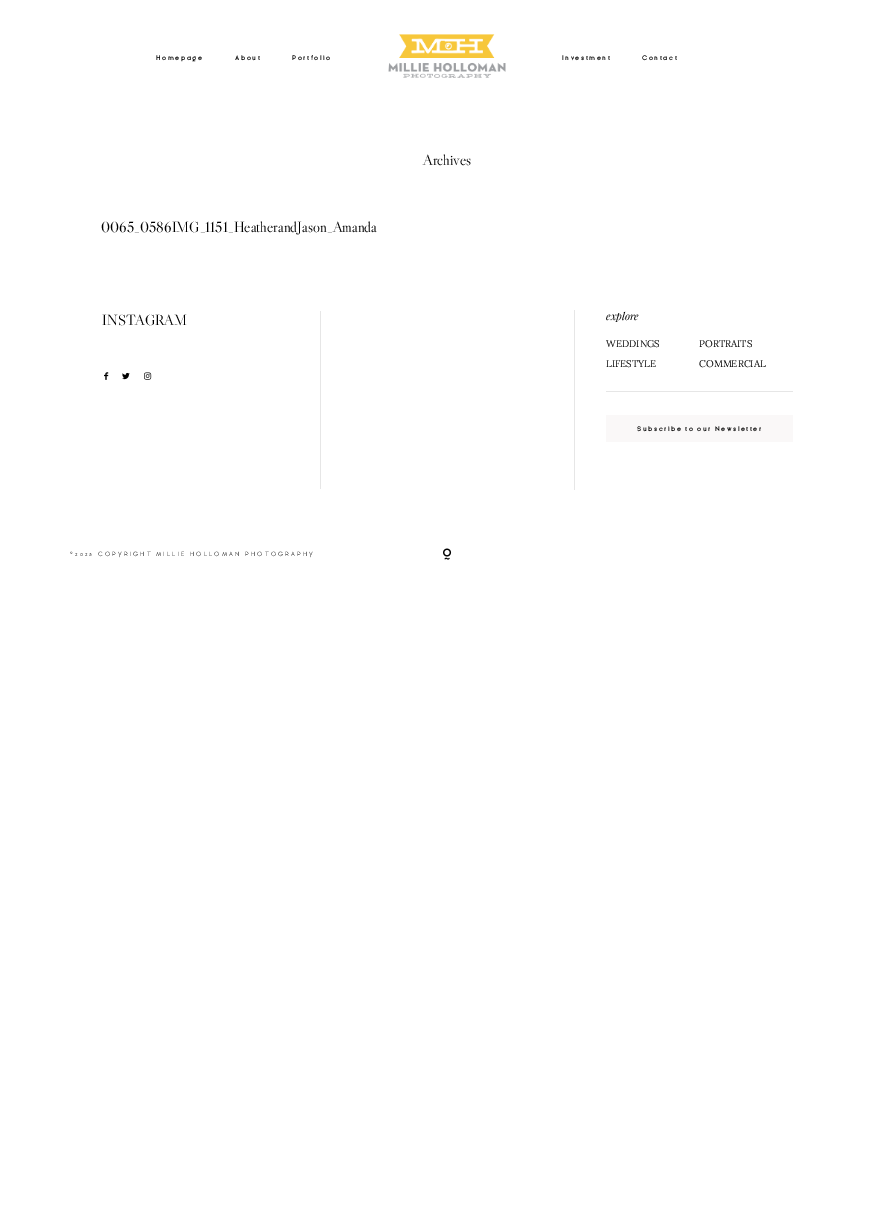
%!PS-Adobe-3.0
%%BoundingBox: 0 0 894 1225
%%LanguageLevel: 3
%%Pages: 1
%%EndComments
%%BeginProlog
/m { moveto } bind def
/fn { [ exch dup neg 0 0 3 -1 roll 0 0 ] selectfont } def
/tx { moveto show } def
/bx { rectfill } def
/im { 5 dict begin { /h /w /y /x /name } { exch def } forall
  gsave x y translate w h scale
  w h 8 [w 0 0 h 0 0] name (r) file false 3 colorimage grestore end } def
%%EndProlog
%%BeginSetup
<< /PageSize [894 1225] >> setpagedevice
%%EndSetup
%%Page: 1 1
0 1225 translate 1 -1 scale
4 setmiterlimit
1 setgray
0 0 894 1225 bx
/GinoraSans-Bold 6.3 fn
0 setgray
156 60 m 1.6 0 (Homepage) ashow
235 60 m 1.6 0 (About) ashow
292 60 m 1.6 0 (Portfolio) ashow
(image0.raw) 388 34 118 44 im
562 60 m 1.6 0 (Investment) ashow
642 60 m 1.6 0 (Contact) ashow
/LibreCaslonDisplay-Regular 14.7 fn
(Archives) 423 165 tx
(0065_0586IMG_1151_HeatherandJason_Amanda) 101 232 tx
0.902 setgray
320 311 1 178 bx
0 setgray
(INSTAGRAM) 102 325 tx
(image1.raw) 104 372 5 8 im
(image2.raw) 122 372 8 8 im
(image3.raw) 144 372 8 8 im
0.902 setgray
574 310 1 180 bx
/PlayfairDisplay-Italic 10.5 fn
0 setgray
(explore) 606 320 tx
0.902 setgray
606 391 187 1 bx
/Lora-Regular 9.75 fn
0 setgray
(WEDDINGS) 606 347 tx
(PORTRAITS) 699 347 tx
(LIFESTYLE) 606 367 tx
(COMMERCIAL) 699 367 tx
0.98 0.973 0.973 setrgbcolor
606 415 187 27 bx
/GinoraSans-Bold 6.3 fn
0 setgray
637 431 m 1.6 0 (Subscribe to our Newsletter) ashow
/GinoraSans-Light 6.3 fn
70 556 m 2.2 0 (©2025 COPYRIGHT MILLIE HOLLOMAN PHOTOGRAPHY) ashow
(image4.raw) 443 548 9 12 im
showpage
%%EOF
